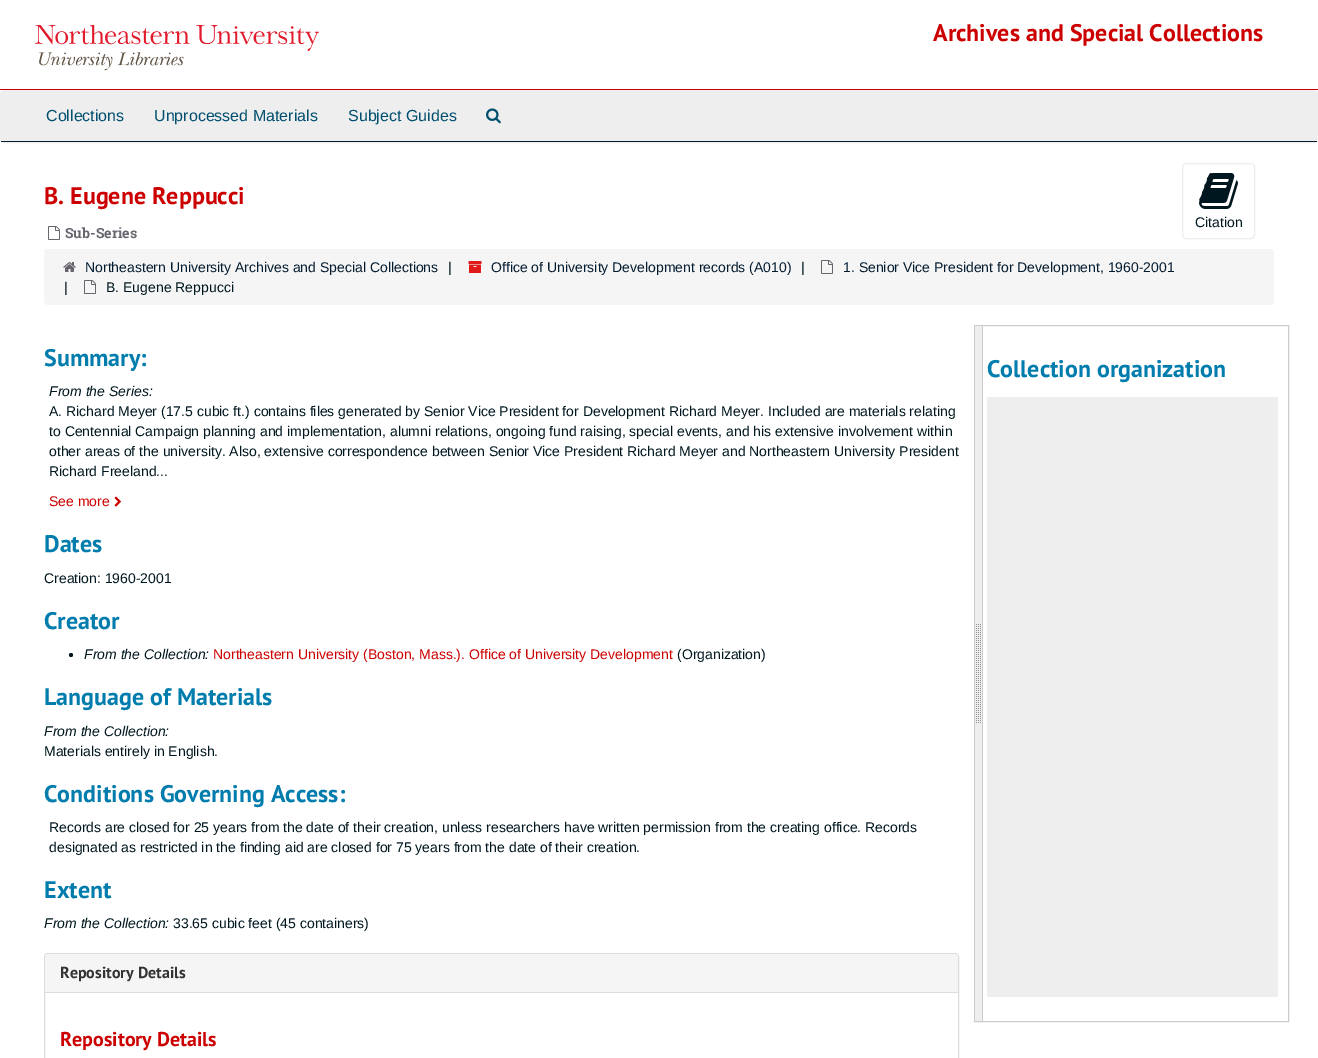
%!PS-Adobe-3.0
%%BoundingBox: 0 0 1318 1058
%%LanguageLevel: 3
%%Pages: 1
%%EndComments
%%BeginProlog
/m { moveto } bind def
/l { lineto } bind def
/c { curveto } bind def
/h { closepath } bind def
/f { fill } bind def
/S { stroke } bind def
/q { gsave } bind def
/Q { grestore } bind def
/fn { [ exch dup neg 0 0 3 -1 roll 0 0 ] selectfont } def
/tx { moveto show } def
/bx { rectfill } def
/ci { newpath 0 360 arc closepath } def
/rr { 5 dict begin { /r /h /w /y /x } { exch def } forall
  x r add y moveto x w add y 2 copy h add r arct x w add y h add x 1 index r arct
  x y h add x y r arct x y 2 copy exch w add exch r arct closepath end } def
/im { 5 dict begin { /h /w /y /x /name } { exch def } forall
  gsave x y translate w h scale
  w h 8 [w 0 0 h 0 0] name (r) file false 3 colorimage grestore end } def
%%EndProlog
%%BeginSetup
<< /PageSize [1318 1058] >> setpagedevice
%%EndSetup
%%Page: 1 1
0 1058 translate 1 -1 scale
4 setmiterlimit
1 setgray
0 0 1318 1058 bx
0.8 0 0 setrgbcolor
0 89 1318 1 bx
(image0.raw) 35 24 284 47 im
/PTSans-Bold 24 fn
(Archives and Special Collections) 933 41 tx
0.933 setgray
0.5 90.5 1317 52 3.5 rr q f Q
S
0.016 0.11 0.184 setrgbcolor
1 141 1316 1 bx
/LiberationSans-Regular 16 fn
0 0.31 0.435 setrgbcolor
(Collections) 46 121 tx
(Unprocessed Materials) 154 121 tx
(Subject Guides) 348 121 tx
(image1.raw) 486 108 15 16 im
/PTSans-Bold 24 fn
0.8 0 0 setrgbcolor
(B. Eugene Reppucci) 44 204 tx
(image2.raw) 48 226 12 14 im
/RobotoSlab-Bold 14 fn
0.412 0.396 0.435 setrgbcolor
(Sub-Series) 65 238 tx
0.933 setgray
1182.5 163.5 72 75 3.5 rr S
(image3.raw) 1199 173 39 36 im
/LiberationSans-Regular 14 fn
0 0.09 0.122 setrgbcolor
(Citation) 1195 227 tx
0.961 setgray
44 249 1230 56 4 rr f
(image4.raw) 63 262 13 10 im
0.016 0.11 0.184 setrgbcolor
(Northeastern University Archives and Special Collections) 85 272 tx
0 0.09 0.122 setrgbcolor
(|) 448 272 tx
(image5.raw) 468 261 14 12 im
0.016 0.11 0.184 setrgbcolor
(Office of University Development records \(A010\)) 491 272 tx
0 0.09 0.122 setrgbcolor
(|) 801 272 tx
(image6.raw) 821 260 12 14 im
0.016 0.11 0.184 setrgbcolor
(1. Senior Vice President for Development, 1960-2001) 843 272 tx
0 0.09 0.122 setrgbcolor
(|) 64 292 tx
(image6.raw) 84 280 12 14 im
(B. Eugene Reppucci) 106 292 tx
/PTSans-Bold 24 fn
0 0.486 0.678 setrgbcolor
(Summary:) 44 366 tx
/LiberationSans-Italic 14 fn
0 0.09 0.122 setrgbcolor
(From the Series:) 49 396 tx
/LiberationSans-Regular 14 fn
(A. Richard Meyer \(17.5 cubic ft.\) contains files generated by Senior Vice President for Development Richard Meyer. Included are materials relating) 49 416 tx
(to Centennial Campaign planning and implementation, alumni relations, ongoing fund raising, special events, and his extensive involvement within) 49 436 tx
(other areas of the university. Also, extensive correspondence between Senior Vice President Richard Meyer and Northeastern University President) 49 456 tx
(Richard Freeland...) 49 476 tx
0.8 0 0 setrgbcolor
(See more) 49 506 tx
(image7.raw) 114 496 7 11 im
/PTSans-Bold 24 fn
0 0.486 0.678 setrgbcolor
(Dates) 44 552 tx
/LiberationSans-Regular 14 fn
0 0.09 0.122 setrgbcolor
(Creation: 1960-2001) 44 583 tx
/PTSans-Bold 24 fn
0 0.486 0.678 setrgbcolor
(Creator) 44 629 tx
0 0.09 0.122 setrgbcolor
71 655 2 ci f
/LiberationSans-Italic 14 fn
(From the Collection:) 84 659 tx
/LiberationSans-Regular 14 fn
0.8 0 0 setrgbcolor
(Northeastern University \(Boston, Mass.\). Office of University Development) 213 659 tx
0 0.09 0.122 setrgbcolor
(\(Organization\)) 677 659 tx
/PTSans-Bold 24 fn
0 0.486 0.678 setrgbcolor
(Language of Materials) 44 705 tx
/LiberationSans-Italic 14 fn
0 0.09 0.122 setrgbcolor
(From the Collection:) 44 736 tx
/LiberationSans-Regular 14 fn
(Materials entirely in English.) 44 756 tx
/PTSans-Bold 24 fn
0 0.486 0.678 setrgbcolor
(Conditions Governing Access:) 44 802 tx
/LiberationSans-Regular 14 fn
0 0.09 0.122 setrgbcolor
(Records are closed for 25 years from the date of their creation, unless researchers have written permission from the creating office. Records) 49 832 tx
(designated as restricted in the finding aid are closed for 75 years from the date of their creation.) 49 852 tx
/PTSans-Bold 24 fn
0 0.486 0.678 setrgbcolor
(Extent) 44 898 tx
/LiberationSans-Italic 14 fn
0 0.09 0.122 setrgbcolor
(From the Collection:) 44 928 tx
/LiberationSans-Regular 14 fn
(33.65 cubic feet \(45 containers\)) 173 928 tx
0.867 setgray
44.5 953.5 914 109 3.5 rr S
0.961 setgray
48 954 m 955 954 l 956.5 954 958 955.5 958 957 c 958 992 l 45 992 l 45 957 l 45 955.5 46.5 954 48 954 c h f
/PTSans-Bold 16 fn
0.2 setgray
(Repository Details) 60 978 tx
0.867 setgray
45 992 913 1 bx
/PTSans-Bold 20 fn
0.8 0 0 setrgbcolor
(Repository Details) 60 1046 tx
0.8 setgray
974.5 325.5 314 696 rectstroke
0.933 setgray
975 326 7 695 bx
(image8.raw) 976 624 5 99 im
0.8 setgray
982 326 1 695 bx
/PTSans-Bold 24 fn
0 0.486 0.678 setrgbcolor
(Collection organization) 987 377 tx
0.933 setgray
987 397 291 600 bx
showpage
%%EOF
